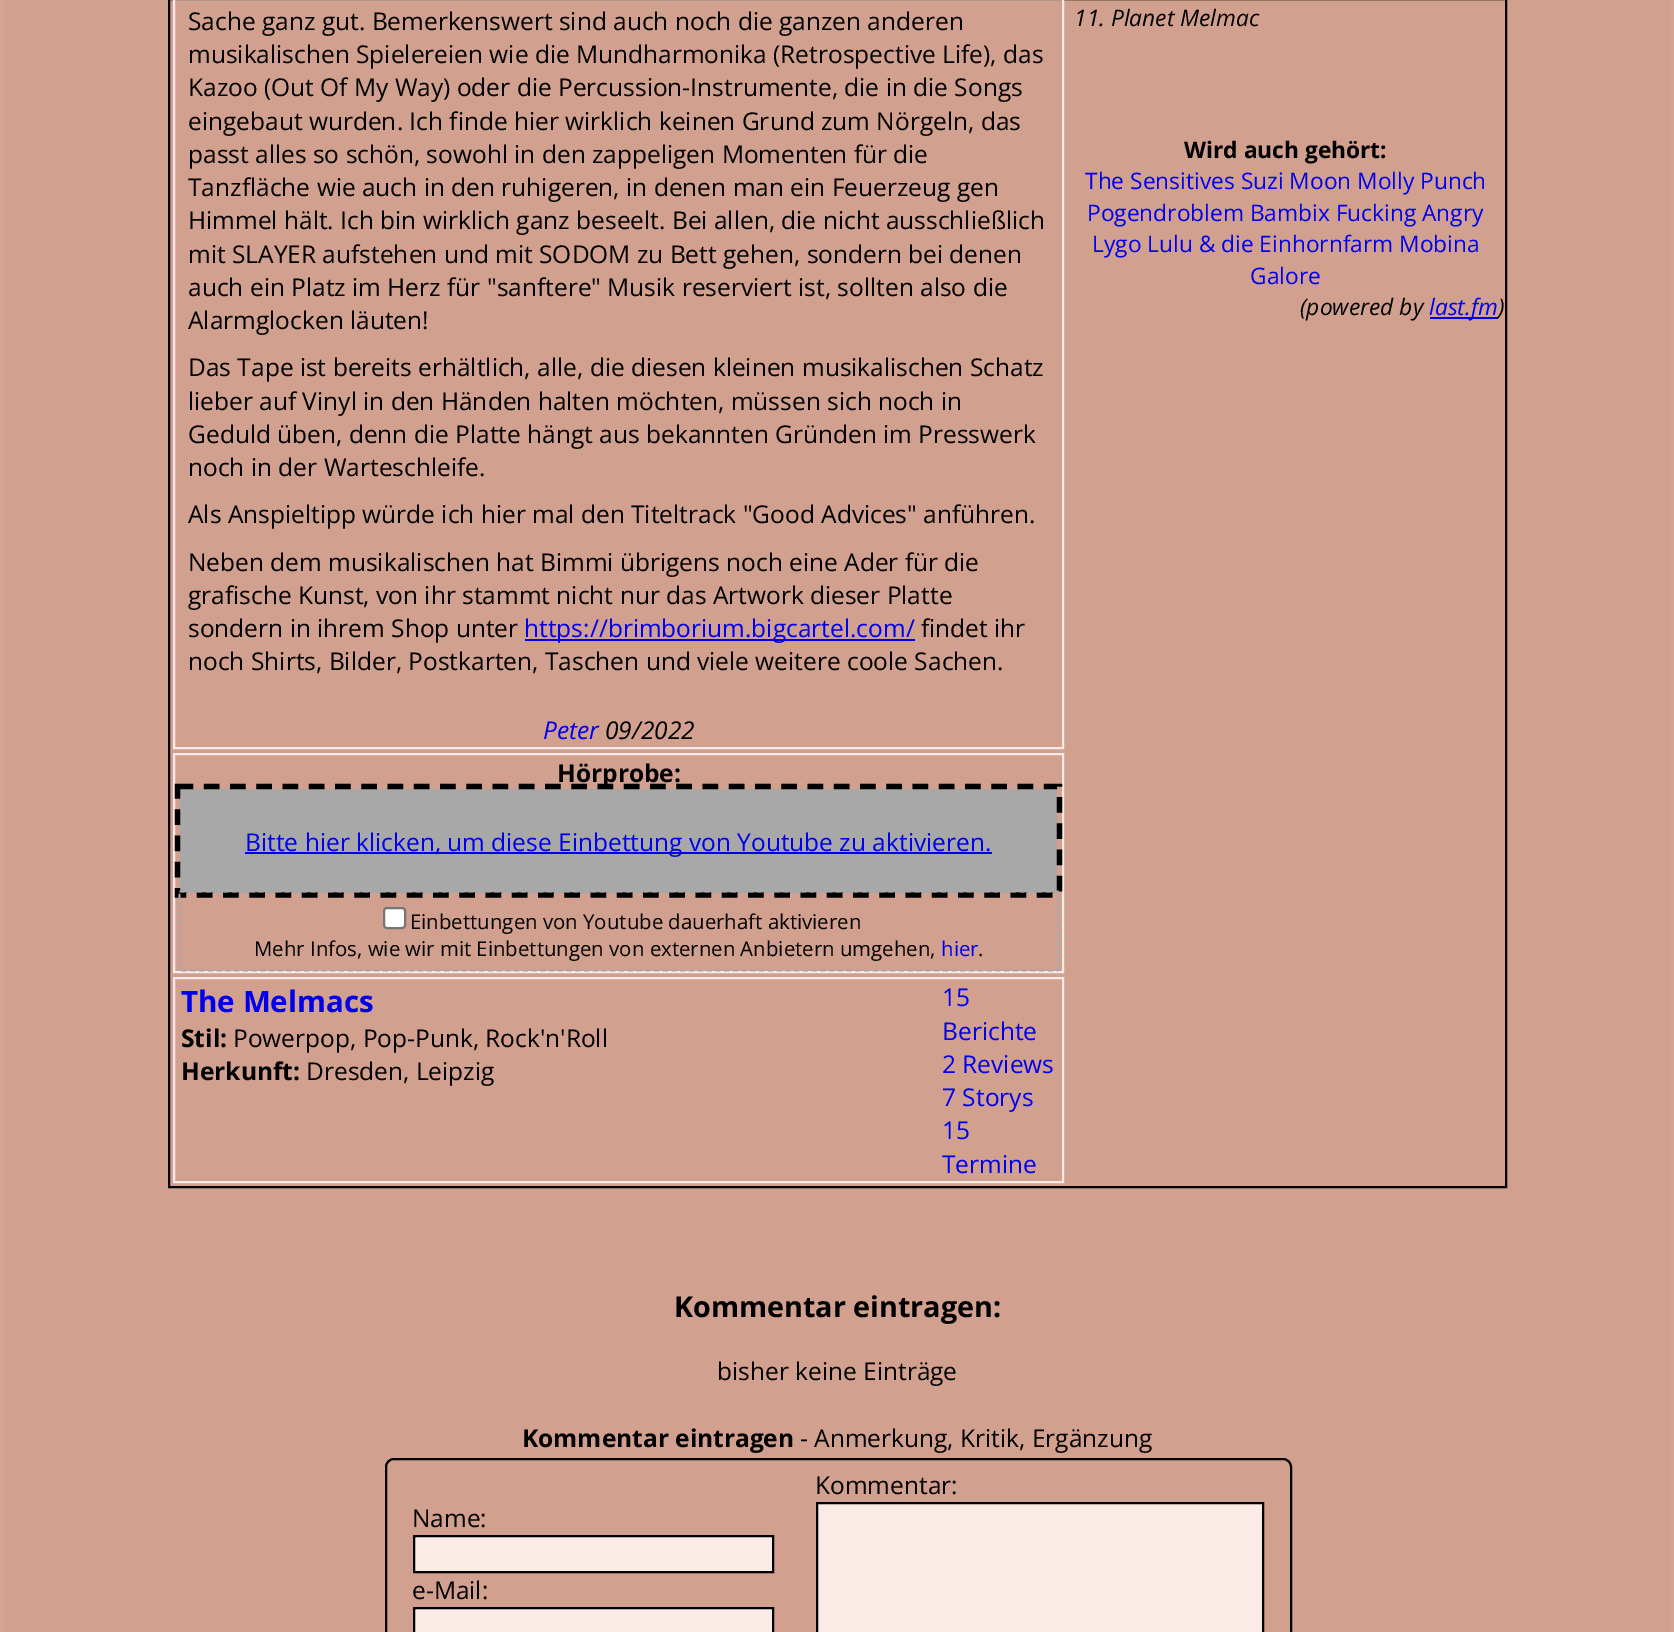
%!PS-Adobe-3.0
%%BoundingBox: 0 0 1674 1632
%%LanguageLevel: 3
%%Pages: 1
%%EndComments
%%BeginProlog
/m { moveto } bind def
/l { lineto } bind def
/h { closepath } bind def
/f { fill } bind def
/S { stroke } bind def
/q { gsave } bind def
/Q { grestore } bind def
/w { setlinewidth } bind def
/fn { [ exch dup neg 0 0 3 -1 roll 0 0 ] selectfont } def
/tx { moveto show } def
/bx { rectfill } def
/rr { 5 dict begin { /r /h /w /y /x } { exch def } forall
  x r add y moveto x w add y 2 copy h add r arct x w add y h add x 1 index r arct
  x y h add x y r arct x y 2 copy exch w add exch r arct closepath end } def
%%EndProlog
%%BeginSetup
<< /PageSize [1674 1632] >> setpagedevice
%%EndSetup
%%Page: 1 1
0 1632 translate 1 -1 scale
4 setmiterlimit
0.831 0.647 0.584 setrgbcolor
0 0 1674 1632 bx
0.82 0.627 0.561 setrgbcolor
4 0 1667 1632 bx
0 setgray
2 w
169 -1 1337 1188 rectstroke
0.98 0.922 0.906 setrgbcolor
174 -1 889 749 rectstroke
/OpenSans-Regular 24.5 fn
0 setgray
(Sache ganz gut. Bemerkenswert sind auch noch die ganzen anderen) 188 30 tx
(musikalischen Spielereien wie die Mundharmonika \(Retrospective Life\), das) 188 63 tx
(Kazoo \(Out Of My Way\) oder die Percussion-Instrumente, die in die Songs) 188 96 tx
(eingebaut wurden. Ich finde hier wirklich keinen Grund zum Nörgeln, das) 188 130 tx
(passt alles so schön, sowohl in den zappeligen Momenten für die) 188 163 tx
(Tanzfläche wie auch in den ruhigeren, in denen man ein Feuerzeug gen) 188 196 tx
(Himmel hält. Ich bin wirklich ganz beseelt. Bei allen, die nicht ausschließlich) 188 229 tx
(mit SLAYER aufstehen und mit SODOM zu Bett gehen, sondern bei denen) 188 263 tx
(auch ein Platz im Herz für "sanftere" Musik reserviert ist, sollten also die) 188 296 tx
(Alarmglocken läuten!) 188 329 tx
(Das Tape ist bereits erhältlich, alle, die diesen kleinen musikalischen Schatz) 188 376 tx
(lieber auf Vinyl in den Händen halten möchten, müssen sich noch in) 188 410 tx
(Geduld üben, denn die Platte hängt aus bekannten Gründen im Presswerk) 188 443 tx
(noch in der Warteschleife.) 188 476 tx
(Als Anspieltipp würde ich hier mal den Titeltrack "Good Advices" anführen.) 188 523 tx
(Neben dem musikalischen hat Bimmi übrigens noch eine Ader für die) 188 571 tx
(grafische Kunst, von ihr stammt nicht nur das Artwork dieser Platte) 188 604 tx
(sondern in ihrem Shop unter) 188 637 tx
0 0 0.933 setrgbcolor
525 639 390 2 bx
(https://brimborium.bigcartel.com/) 524 637 tx
0 setgray
(findet ihr) 921 637 tx
(noch Shirts, Bilder, Postkarten, Taschen und viele weitere coole Sachen.) 188 670 tx
/OpenSans-Italic 24.5 fn
0 0 0.933 setrgbcolor
(Peter) 543 739 tx
0 setgray
(09/2022) 605 739 tx
0.98 0.922 0.906 setrgbcolor
174 754 889 218 rectstroke
/OpenSans-Bold 24.5 fn
0 setgray
(Hörprobe:) 557 782 tx
0.659 setgray
180 789 877 104 bx
0 0 0.933 setrgbcolor
245 852 747 2 bx
/OpenSans-Regular 24.5 fn
(Bitte hier klicken, um diese Einbettung von Youtube zu aktivieren.) 245 851 tx
0 setgray
5.2 w
[15.75 10.5] 0 setdash
177.5 786.5 m 1059.5 786.5 l 1059.5 895 l 177.5 895 l h S
/OpenSans-Regular 20.4 fn
(Einbettungen von Youtube dauerhaft aktivieren) 410 929 tx
(Mehr Infos, wie wir mit Einbettungen von externen Anbietern umgehen,) 254 956 tx
0 0 0.933 setrgbcolor
(hier) 941 956 tx
0 setgray
(.) 978 956 tx
0.659 setgray
1.8 w
[5.25 3.5] 0 setdash
179.5 891.5 m 1058 891.5 l 1058 970.5 l 179.5 970.5 l h S
1 setgray
384 908 21 20 3 rr q f Q
0.463 setgray
2 w
[] 0 setdash
S
0.98 0.922 0.906 setrgbcolor
174 978 889 204 rectstroke
/OpenSans-Bold 29.5 fn
0 0 0.933 setrgbcolor
(The Melmacs) 181 1012 tx
/OpenSans-Bold 24.5 fn
0 setgray
(Stil:) 181 1047 tx
/OpenSans-Regular 24.5 fn
(Powerpop, Pop-Punk, Rock'n'Roll) 233 1047 tx
/OpenSans-Bold 24.5 fn
(Herkunft:) 181 1080 tx
/OpenSans-Regular 24.5 fn
(Dresden, Leipzig) 306 1080 tx
0 0 0.933 setrgbcolor
(15) 942 1006 tx
(Berichte) 942 1040 tx
(2 Reviews) 942 1073 tx
(7 Storys) 942 1106 tx
(15) 942 1139 tx
(Termine) 942 1173 tx
/OpenSans-Italic 22.75 fn
0 setgray
(11. Planet Melmac) 1074 26 tx
/OpenSans-Bold 22.75 fn
(Wird auch gehört:) 1184 158 tx
/OpenSans-Regular 22.75 fn
0 0 0.933 setrgbcolor
(The Sensitives Suzi Moon Molly Punch) 1085 189 tx
(Pogendroblem Bambix Fucking Angry) 1087 221 tx
(Lygo Lulu & die Einhornfarm Mobina) 1092 252 tx
(Galore) 1250 284 tx
/OpenSans-Italic 22.75 fn
0 setgray
(\(powered by) 1300 315 tx
0 0 0.933 setrgbcolor
1430 317 68 2 bx
(last.fm) 1429 315 tx
0 setgray
(\)) 1498 315 tx
/OpenSans-Bold 28.7 fn
(Kommentar eintragen:) 674 1317 tx
/OpenSans-Regular 24.5 fn
(bisher keine Einträge) 717 1380 tx
/OpenSans-Bold 24.5 fn
(Kommentar eintragen) 522 1447 tx
/OpenSans-Regular 24.5 fn
(- Anmerkung, Kritik, Ergänzung) 800 1447 tx
386 1459 905 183 8 rr S
(Kommentar:) 815 1494 tx
0.98 0.922 0.906 setrgbcolor
817 1503 m 1263 1503 l 1263 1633 l 817 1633 l h q f Q
0 setgray
S
(Name:) 412 1527 tx
0.98 0.922 0.906 setrgbcolor
414 1536 m 773 1536 l 773 1572 l 414 1572 l h q f Q
0 setgray
S
(e-Mail:) 412 1599 tx
0.98 0.922 0.906 setrgbcolor
414 1608 m 773 1608 l 773 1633 l 414 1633 l h q f Q
0 setgray
S
showpage
%%EOF
